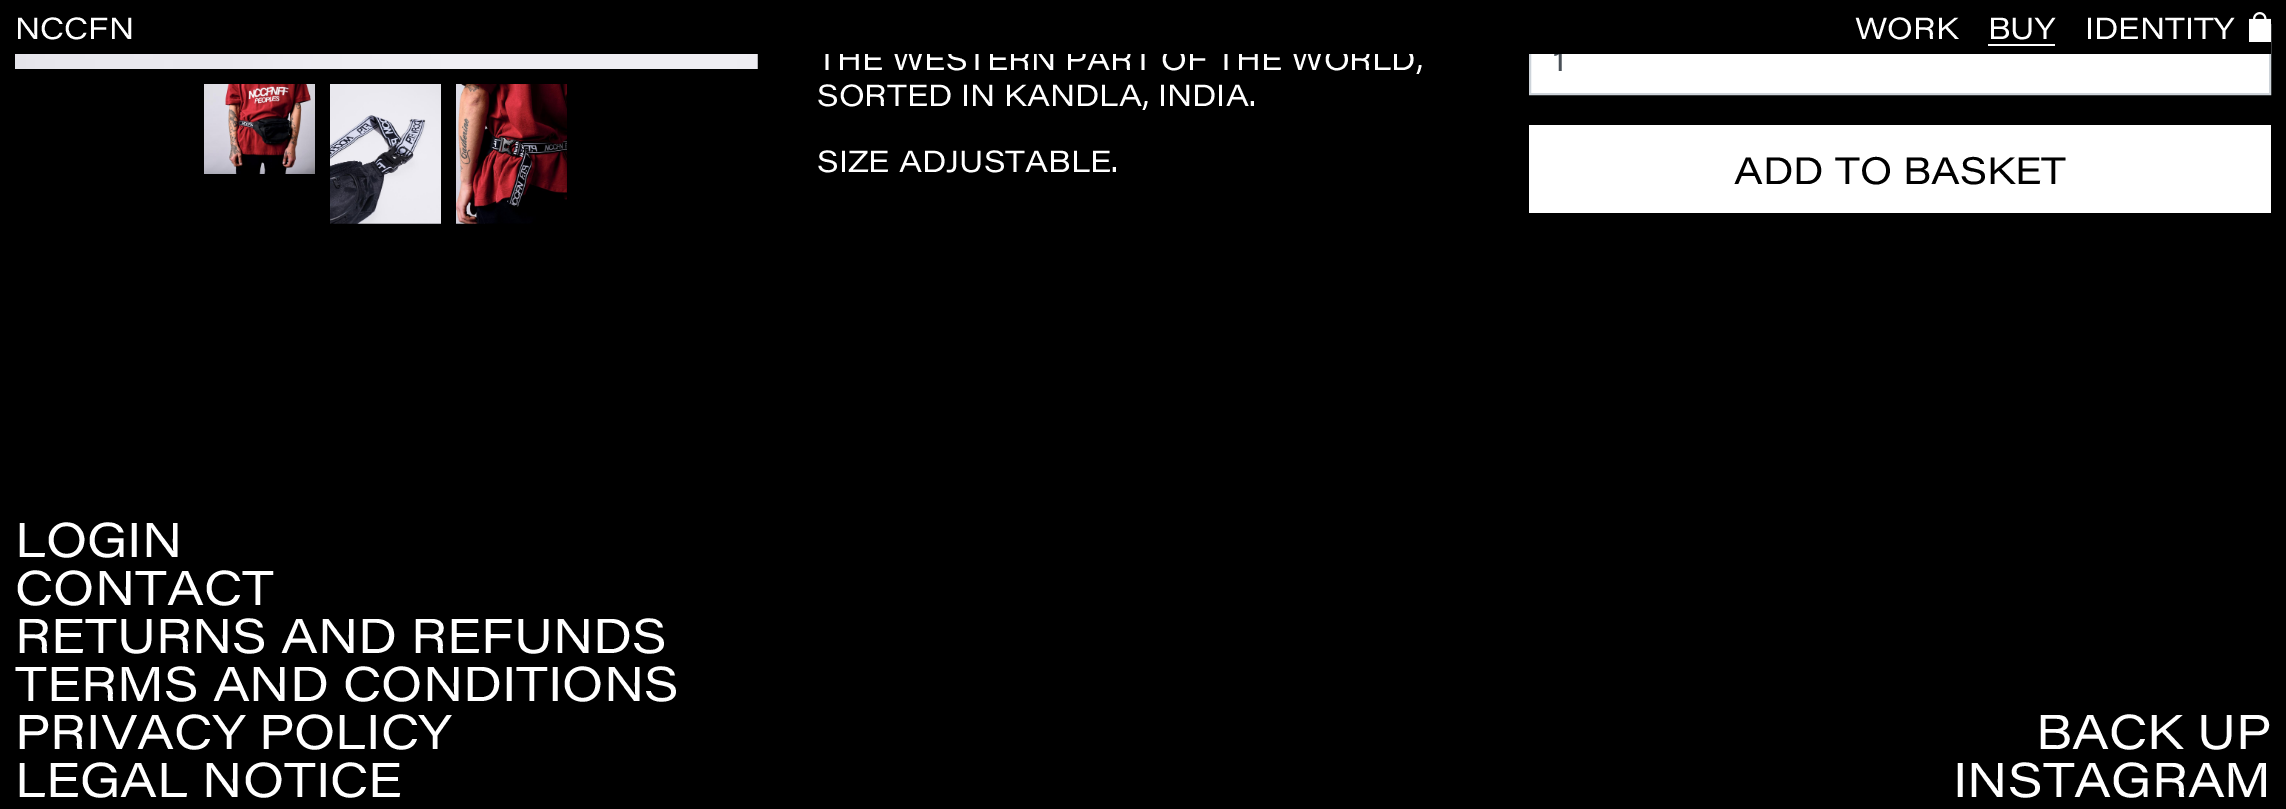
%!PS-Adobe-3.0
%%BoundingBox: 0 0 2286 809
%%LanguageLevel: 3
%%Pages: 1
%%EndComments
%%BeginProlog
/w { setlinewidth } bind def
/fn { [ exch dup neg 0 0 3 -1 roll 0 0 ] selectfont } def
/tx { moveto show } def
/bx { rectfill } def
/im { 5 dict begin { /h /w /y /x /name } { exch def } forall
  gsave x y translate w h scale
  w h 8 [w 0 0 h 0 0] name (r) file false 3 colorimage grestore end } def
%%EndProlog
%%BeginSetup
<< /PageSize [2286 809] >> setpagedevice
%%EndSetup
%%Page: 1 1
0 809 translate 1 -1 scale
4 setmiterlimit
0 setgray
0 0 2286 809 bx
/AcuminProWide-Regular 30 fn
1 setgray
(THE WESTERN PART OF THE WORLD,) 817 70 tx
1531 54 738 39 bx
0.808 0.831 0.855 setrgbcolor
2 w
1530 25 740 69 rectstroke
0.286 0.314 0.341 setrgbcolor
(1) 1553 71 tx
0 setgray
817 24 1454 30 bx
1 setgray
(NCCFN) 15 39 tx
(WORK) 1855 39 tx
(BUY) 1988 39 tx
1988 44 67 2 bx
(IDENTITY) 2085 39 tx
(image0.raw) 2249 12 22 30 im
(image1.raw) 15 54 742 15 im
0.702 0.698 0.714 setrgbcolor
757 54 1 15 bx
(image2.raw) 204 84 111 90 im
(image3.raw) 330 84 111 140 im
(image4.raw) 330 223 111 1 im
(image5.raw) 456 84 111 140 im
(image6.raw) 456 223 29 1 im
1 setgray
(SORTED IN KANDLA, INDIA.) 817 106 tx
(SIZE ADJUSTABLE.) 817 172 tx
1529 125 742 88 bx
/AcuminProWide-Regular 37.5 fn
0 setgray
(ADD TO BASKET) 1734 184 tx
/AcuminProWide-Regular 48 fn
1 setgray
(LOGIN) 15 557 tx
(CONTACT) 15 605 tx
(RETURNS AND REFUNDS) 15 653 tx
(TERMS AND CONDITIONS) 15 701 tx
(PRIVACY POLICY) 15 749 tx
(LEGAL NOTICE) 15 797 tx
(BACK UP) 2036 749 tx
(INSTAGRAM) 1953 797 tx
showpage
%%EOF
